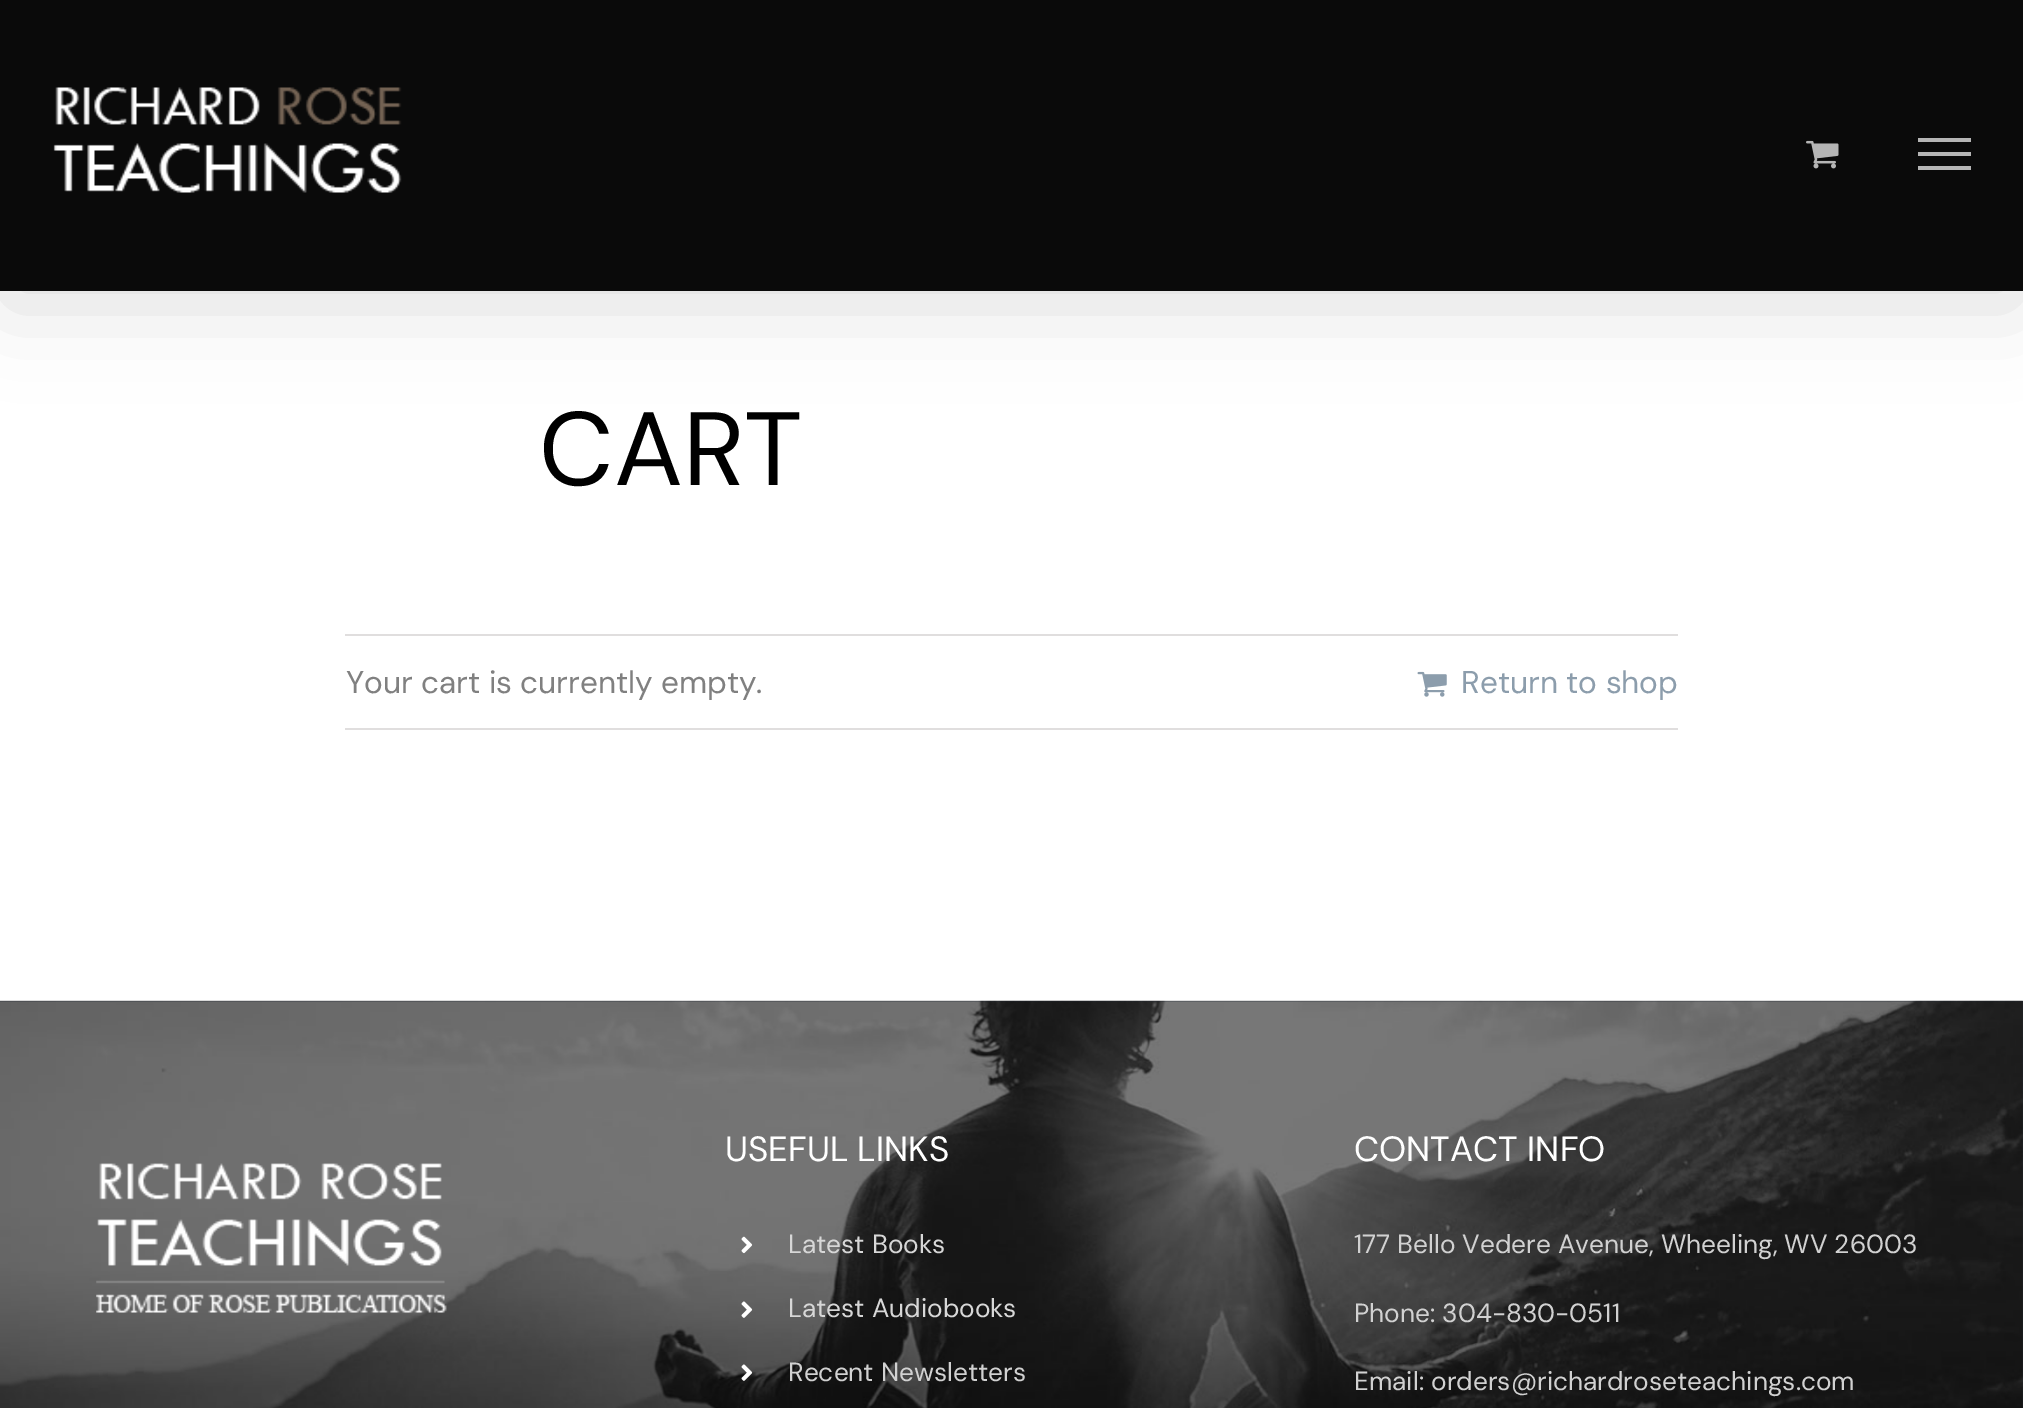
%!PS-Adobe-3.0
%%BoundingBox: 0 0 2023 1408
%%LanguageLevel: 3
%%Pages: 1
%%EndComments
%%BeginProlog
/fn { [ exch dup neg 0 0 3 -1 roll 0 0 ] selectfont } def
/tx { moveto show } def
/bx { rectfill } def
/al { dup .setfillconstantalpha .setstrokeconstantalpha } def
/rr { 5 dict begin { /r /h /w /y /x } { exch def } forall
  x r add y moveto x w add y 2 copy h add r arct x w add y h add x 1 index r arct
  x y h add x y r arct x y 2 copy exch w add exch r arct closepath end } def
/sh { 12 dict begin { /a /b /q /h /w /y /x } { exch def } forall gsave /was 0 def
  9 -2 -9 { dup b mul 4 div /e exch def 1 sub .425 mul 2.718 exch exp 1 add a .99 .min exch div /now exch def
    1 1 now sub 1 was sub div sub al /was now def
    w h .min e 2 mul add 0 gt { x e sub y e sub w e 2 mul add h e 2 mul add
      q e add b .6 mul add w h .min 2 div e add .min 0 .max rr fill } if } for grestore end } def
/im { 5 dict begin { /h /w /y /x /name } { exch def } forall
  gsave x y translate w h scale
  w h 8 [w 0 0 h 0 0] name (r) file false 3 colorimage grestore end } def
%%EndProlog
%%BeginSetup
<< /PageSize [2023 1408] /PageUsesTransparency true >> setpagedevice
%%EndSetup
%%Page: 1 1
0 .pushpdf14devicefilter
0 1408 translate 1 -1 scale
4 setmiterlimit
1 setgray
0 0 2023 1408 bx
0 setgray
4 21 2016 284 0 44 0.14 sh
0.039 setgray
0 0 2023 291 bx
(image0.raw) 53 87 349 106 im
(image1.raw) 1806 140 33 29 im
0.71 setgray
1918 138 53 4 bx
1918 152 53 4 bx
1918 166 53 4 bx
/DMSans-Regular 104 fn
0 setgray
(CART) 539 485 tx
0.878 0.871 0.871 setrgbcolor
345 634 1333 2 bx
345 728 1333 2 bx
/DMSans-Regular 31.5 fn
0.502 setgray
(Your cart is currently empty.) 346 693 tx
(image2.raw) 1417 671 30 26 im
0.549 0.616 0.675 setrgbcolor
(Return to shop) 1461 693 tx
0.129 0.161 0.204 setrgbcolor
0 1001 2023 407 bx
(image3.raw) 0 1000 2023 408 im
(image4.raw) 96 1163 351 150 im
/DMSans-Regular 35 fn
1 setgray
(USEFUL LINKS) 725 1161 tx
(image5.raw) 741 1236 12 18 im
/DMSans-Regular 26.25 fn
0.843 setgray
(Latest Books) 788 1253 tx
(image6.raw) 741 1301 12 17 im
(Latest Audiobooks) 788 1317 tx
(image7.raw) 741 1364 12 17 im
0.82 setgray
(Recent Newsletters) 788 1381 tx
/DMSans-Regular 35 fn
1 setgray
(CONTACT INFO) 1354 1161 tx
/DMSans-Regular 26.25 fn
0.82 setgray
(177 Bello Vedere Avenue, Wheeling, WV 26003) 1354 1253 tx
(Phone: 304-830-0511) 1354 1322 tx
(Email:) 1354 1390 tx
(orders@richardroseteachings.com) 1431 1390 tx
.poppdf14devicefilter showpage
%%EOF
